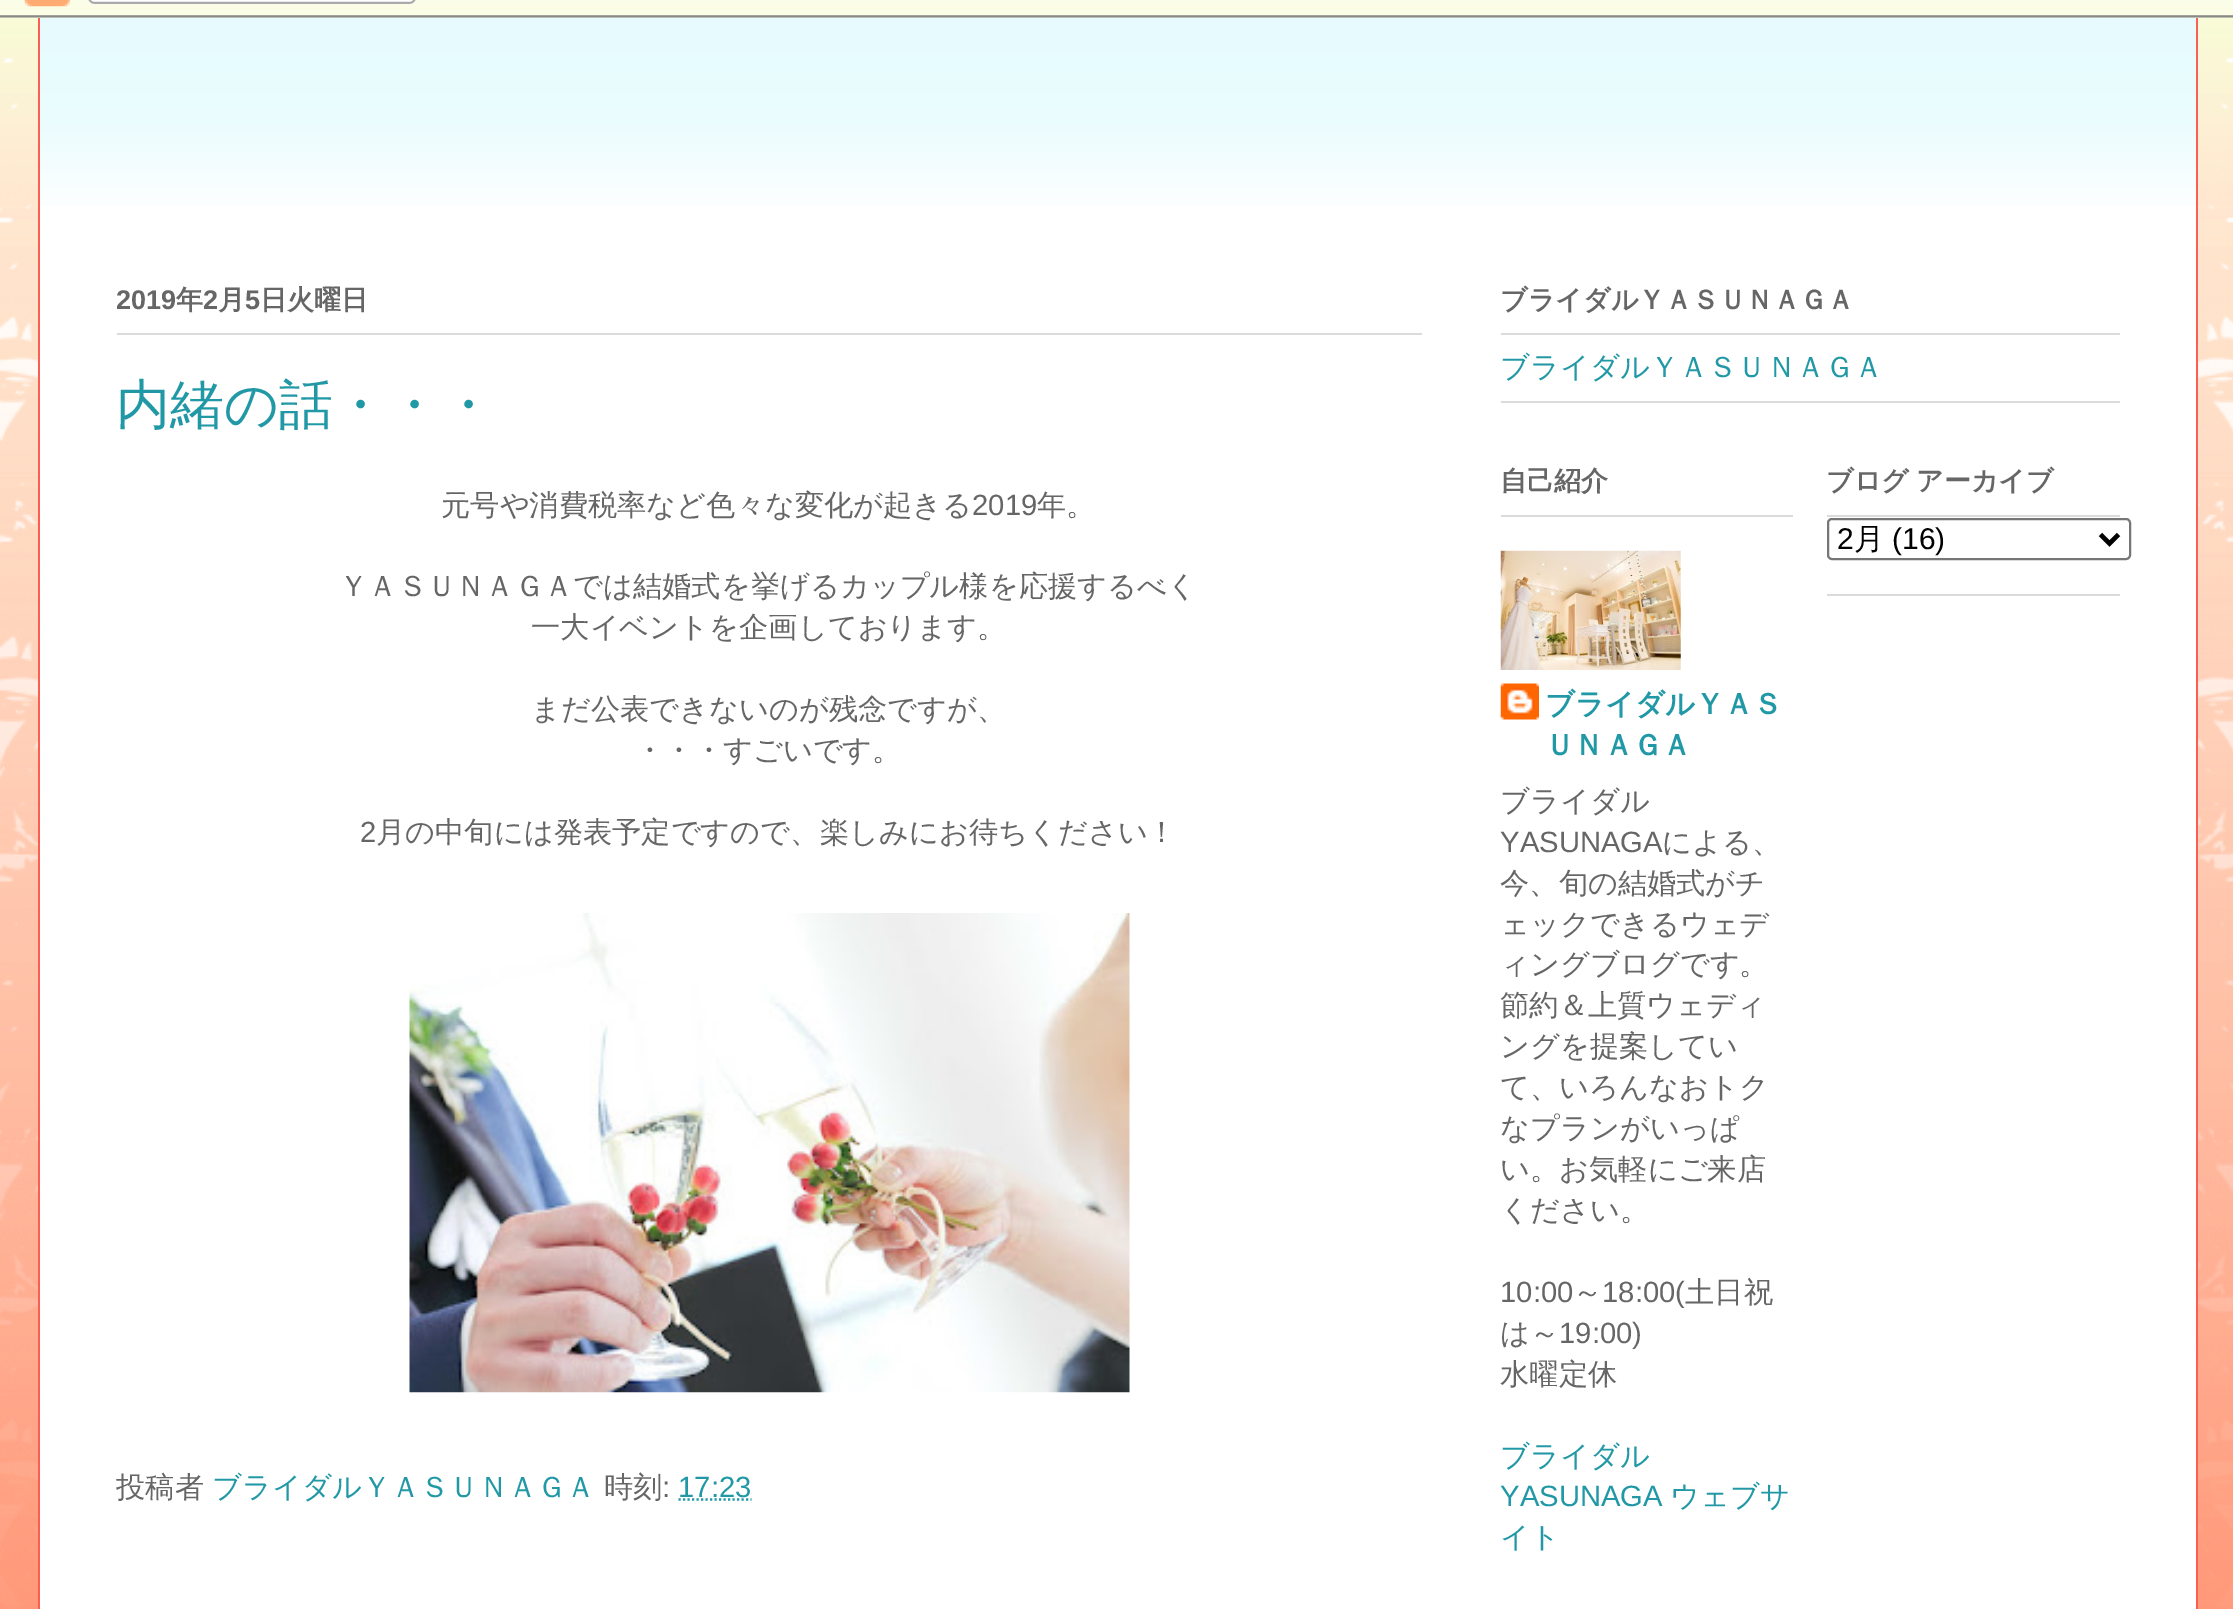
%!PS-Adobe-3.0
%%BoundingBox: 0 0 2233 1609
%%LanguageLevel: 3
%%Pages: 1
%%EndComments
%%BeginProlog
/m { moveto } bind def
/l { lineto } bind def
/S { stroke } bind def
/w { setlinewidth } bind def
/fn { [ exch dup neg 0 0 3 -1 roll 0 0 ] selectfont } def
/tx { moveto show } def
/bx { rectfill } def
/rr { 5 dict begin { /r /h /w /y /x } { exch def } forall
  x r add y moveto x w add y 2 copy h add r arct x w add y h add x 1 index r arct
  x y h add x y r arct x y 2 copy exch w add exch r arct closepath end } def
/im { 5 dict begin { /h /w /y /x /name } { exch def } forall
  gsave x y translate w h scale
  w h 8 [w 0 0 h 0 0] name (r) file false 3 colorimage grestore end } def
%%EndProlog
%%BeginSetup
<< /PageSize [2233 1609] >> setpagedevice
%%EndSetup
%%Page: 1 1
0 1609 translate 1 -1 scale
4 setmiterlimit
1 setgray
0 0 2233 1609 bx
(image0.raw) 0 0 2233 1609 im
(image2.raw) 0 17 2199 1592 im
40 18 2156 1591 bx
(image3.raw) 38 17 2161 189 im
(image1.raw) 0 0 2233 18 im
0.984 0.369 0.325 setrgbcolor
2196 18 2 1591 bx
38 18 2 1591 bx
(image4.raw) 2198 57 35 1552 im
0.859 setgray
117 333 1305 2 bx
/LiberationSans-Bold 27 fn
0.4 setgray
(2019) 116 309 tx
/WenQuanYiZenHei-Bold 27 fn
(年) 176 309 tx
/LiberationSans-Bold 27 fn
(2) 203 309 tx
/WenQuanYiZenHei-Bold 27 fn
(月) 218 309 tx
/LiberationSans-Bold 27 fn
(5) 245 309 tx
/WenQuanYiZenHei-Bold 27 fn
(日火曜日) 260 309 tx
/WenQuanYiZenHei-Medium 54 fn
0.129 0.596 0.651 setrgbcolor
(内緒の話・・・) 116 423 tx
/WenQuanYiZenHei-Medium 29.25 fn
0.4 setgray
(元号や消費税率など色々な変化が起きる) 441 515 tx
/LiberationSans-Regular 29.25 fn
(2019) 972 515 tx
/WenQuanYiZenHei-Medium 29.25 fn
(年。) 1037 515 tx
(ＹＡＳＵＮＡＧＡでは結婚式を挙げるカップル様を応援するべく) 339 596 tx
(一大イベントを企画しております。) 531 637 tx
(まだ公表できないのが残念ですが、) 531 719 tx
(・・・すごいです。) 635 760 tx
/LiberationSans-Regular 29.25 fn
(2) 360 842 tx
/WenQuanYiZenHei-Medium 29.25 fn
(月の中旬には発表予定ですので、楽しみにお待ちください！) 376 842 tx
(image5.raw) 409 913 721 480 im
(投稿者) 116 1497 tx
0.129 0.596 0.651 setrgbcolor
(ブライダルＹＡＳＵＮＡＧＡ) 212 1497 tx
0.4 setgray
(時刻) 604 1497 tx
/LiberationSans-Regular 29.25 fn
(:) 662 1497 tx
0.129 0.596 0.651 setrgbcolor
(17:23) 678 1497 tx
2.2 w
[2.25 2.25] 0 setdash
678.5 1499.5 m 751.5 1499.5 l S
0.859 setgray
1501 401 619 2 bx
1501 333 619 2 bx
/WenQuanYiZenHei-Bold 27 fn
0.4 setgray
(ブライダルＹＡＳＵＮＡＧＡ) 1500 309 tx
/WenQuanYiZenHei-Medium 29.25 fn
0.129 0.596 0.651 setrgbcolor
(ブライダルＹＡＳＵＮＡＧＡ) 1500 377 tx
0.859 setgray
1501 515 292 2 bx
/WenQuanYiZenHei-Bold 27 fn
0.4 setgray
(自己紹介) 1500 490 tx
(image6.raw) 1500 550 181 120 im
(image7.raw) 1500 683 39 37 im
/WenQuanYiZenHei-Bold 29.25 fn
0.129 0.596 0.651 setrgbcolor
(ブライダルＹＡＳ) 1545 714 tx
(ＵＮＡＧＡ) 1545 755 tx
/WenQuanYiZenHei-Medium 29.25 fn
0.4 setgray
(ブライダル) 1500 811 tx
/LiberationSans-Regular 29.25 fn
(YASUNAGA) 1500 852 tx
/WenQuanYiZenHei-Medium 29.25 fn
(による、) 1662 852 tx
(今、旬の結婚式がチ) 1500 893 tx
(ェックできるウェデ) 1500 934 tx
(ィングブログです。) 1500 974 tx
(節約＆上質ウェディ) 1500 1015 tx
(ングを提案してい) 1500 1056 tx
(て、いろんなおトク) 1500 1097 tx
(なプランがいっぱ) 1500 1138 tx
(い。お気軽にご来店) 1500 1179 tx
(ください。) 1500 1220 tx
/LiberationSans-Regular 29.25 fn
(10:00) 1500 1302 tx
/WenQuanYiZenHei-Medium 29.25 fn
(～) 1573 1302 tx
/LiberationSans-Regular 29.25 fn
(18:00\() 1602 1302 tx
/WenQuanYiZenHei-Medium 29.25 fn
(土日祝) 1685 1302 tx
(は～) 1500 1343 tx
/LiberationSans-Regular 29.25 fn
(19:00\)) 1559 1343 tx
/WenQuanYiZenHei-Medium 29.25 fn
(水曜定休) 1500 1384 tx
0.129 0.596 0.651 setrgbcolor
(ブライダル) 1500 1466 tx
/LiberationSans-Regular 29.25 fn
(YASUNAGA) 1500 1506 tx
/WenQuanYiZenHei-Medium 29.25 fn
(ウェブサ) 1670 1506 tx
(イト) 1500 1547 tx
0.859 setgray
1827 594 293 2 bx
1827 515 293 2 bx
/WenQuanYiZenHei-Bold 27 fn
0.4 setgray
1826 490 m -1 0 32 (ブログ アーカイブ) widthshow
0.463 setgray
2 w
[] 0 setdash
1828 519 302 40 4 rr S
0 setgray
4.5 w
2100.5 534.5 m 2109.5 543.5 l 2118.5 534.5 l S
/LiberationSans-Regular 30 fn
(2) 1837 549 tx
/WenQuanYiZenHei-Medium 30 fn
(月) 1854 549 tx
/LiberationSans-Regular 30 fn
(\(16\)) 1892 549 tx
showpage
%%EOF
